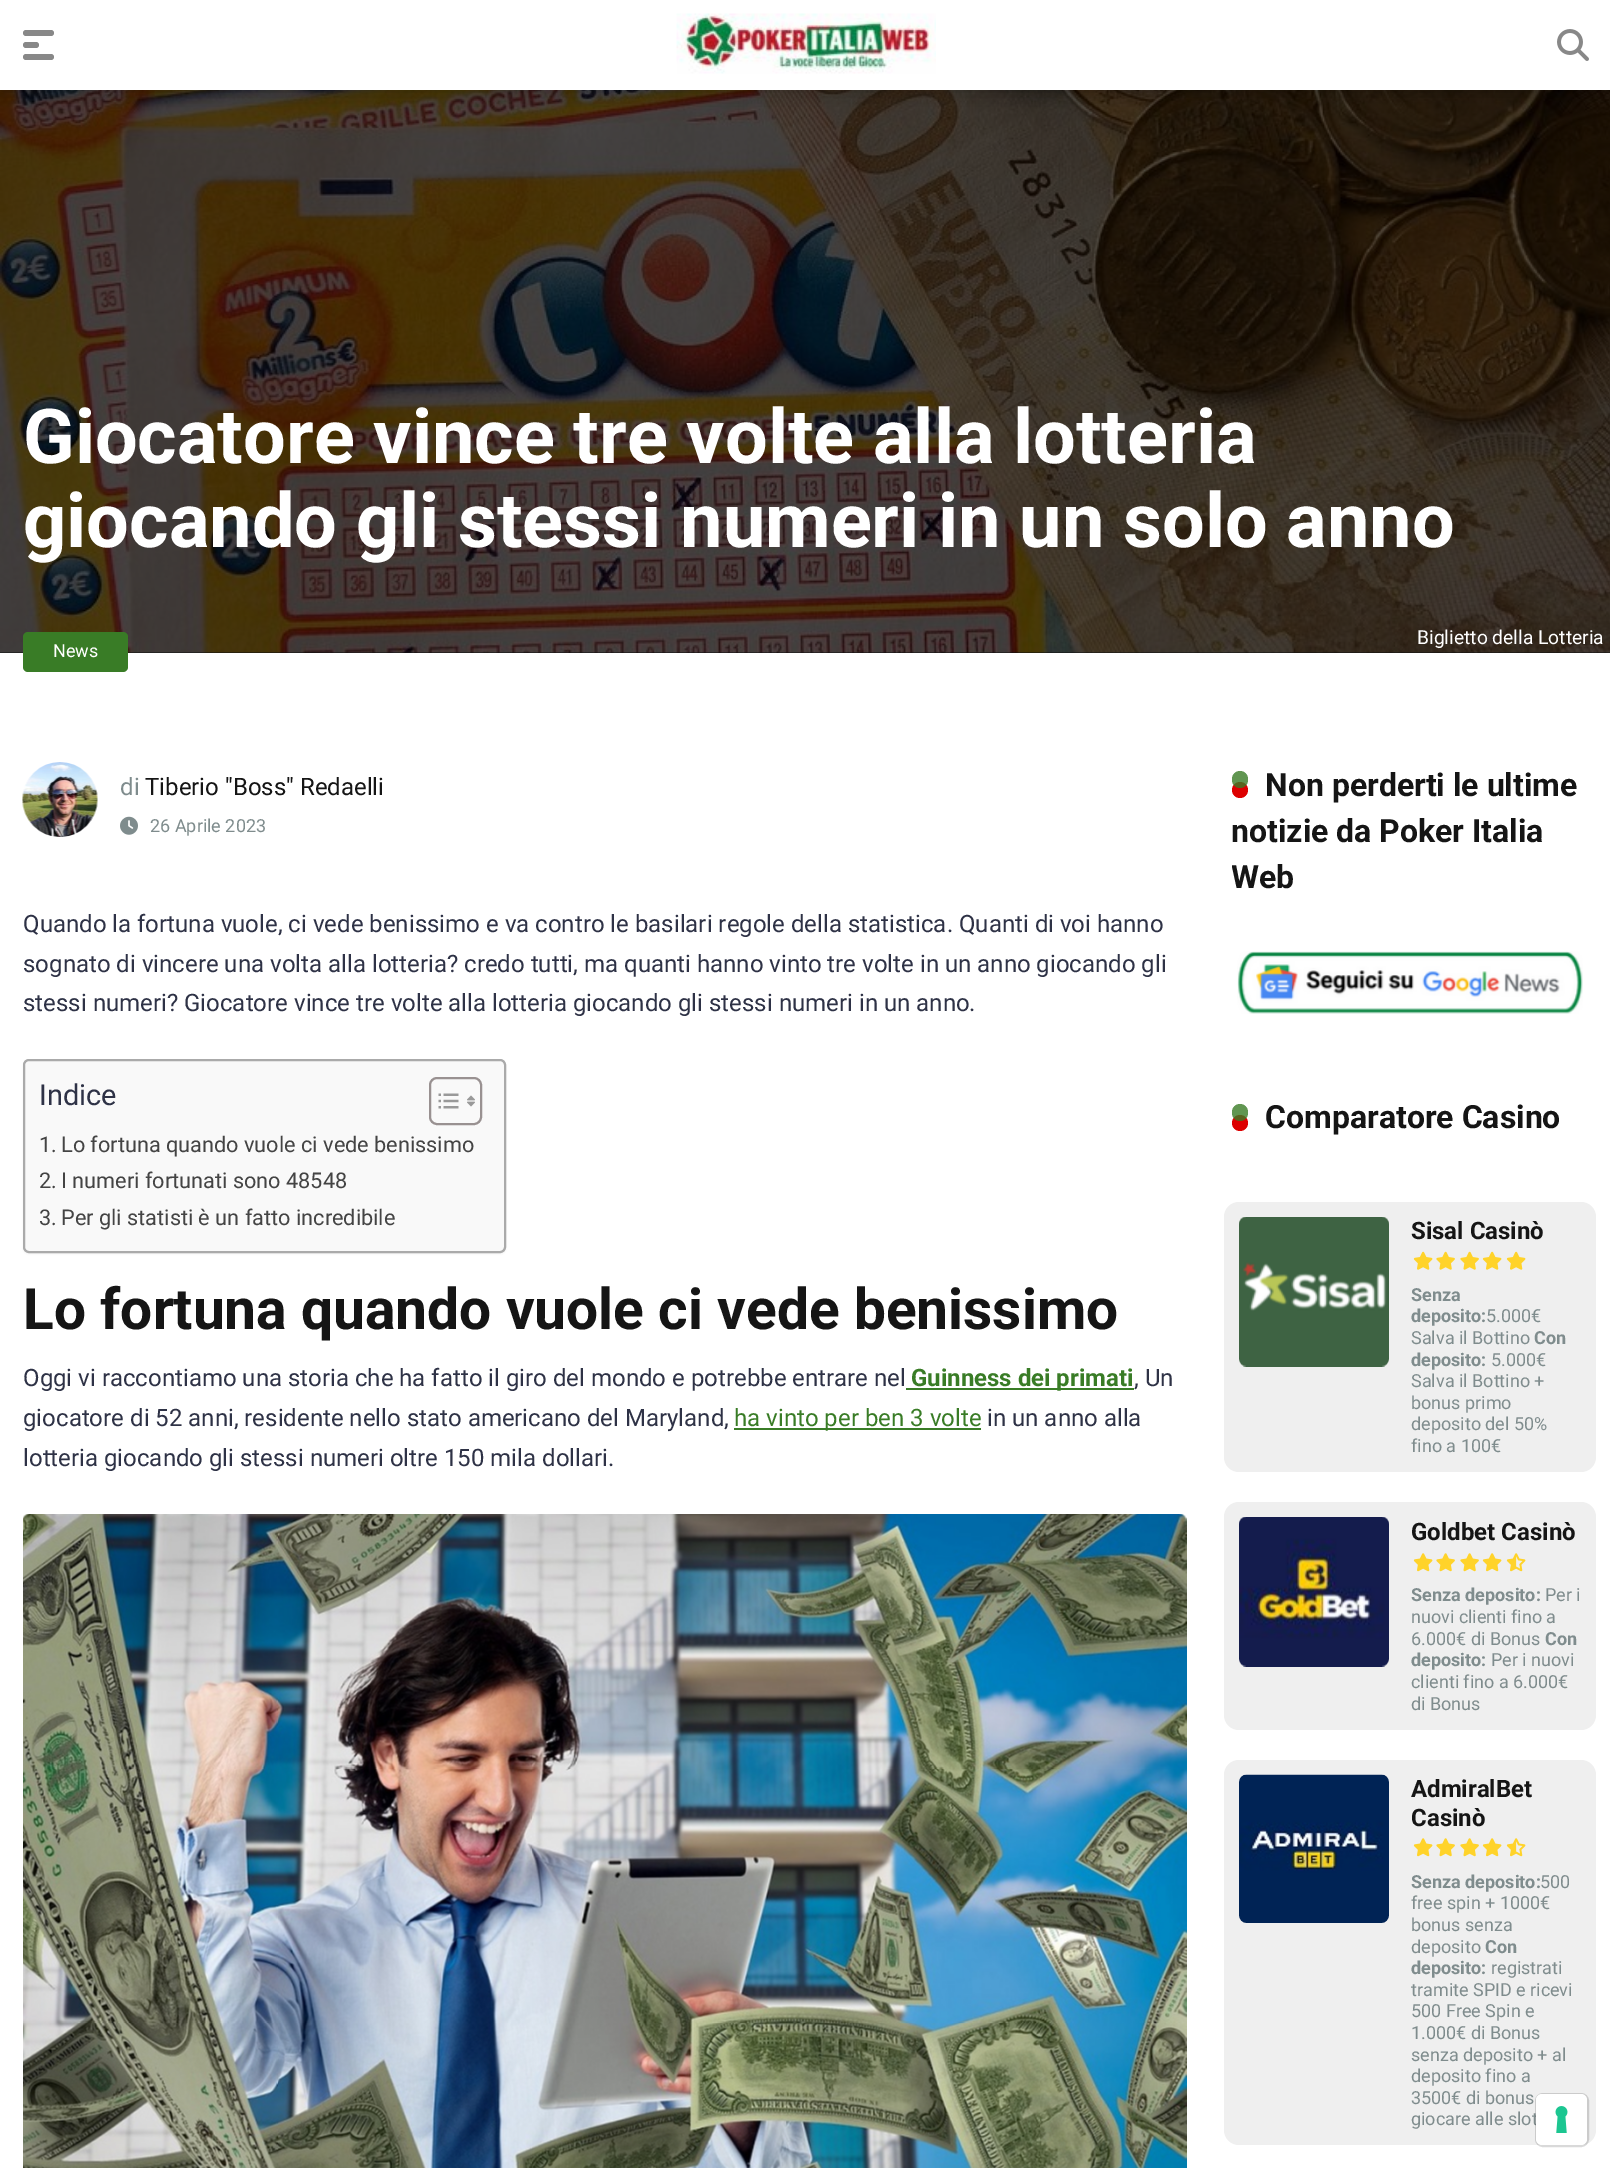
%!PS-Adobe-3.0
%%BoundingBox: 0 0 1610 2168
%%LanguageLevel: 3
%%Pages: 1
%%EndComments
%%BeginProlog
/f { fill } bind def
/S { stroke } bind def
/q { gsave } bind def
/Q { grestore } bind def
/w { setlinewidth } bind def
/fn { [ exch dup neg 0 0 3 -1 roll 0 0 ] selectfont } def
/tx { moveto show } def
/bx { rectfill } def
/al { dup .setfillconstantalpha .setstrokeconstantalpha } def
/ci { newpath 0 360 arc closepath } def
/rr { 5 dict begin { /r /h /w /y /x } { exch def } forall
  x r add y moveto x w add y 2 copy h add r arct x w add y h add x 1 index r arct
  x y h add x y r arct x y 2 copy exch w add exch r arct closepath end } def
/sh { 12 dict begin { /a /b /q /h /w /y /x } { exch def } forall gsave /was 0 def
  9 -2 -9 { dup b mul 4 div /e exch def 1 sub .425 mul 2.718 exch exp 1 add a .99 .min exch div /now exch def
    1 1 now sub 1 was sub div sub al /was now def
    w h .min e 2 mul add 0 gt { x e sub y e sub w e 2 mul add h e 2 mul add
      q e add b .6 mul add w h .min 2 div e add .min 0 .max rr fill } if } for grestore end } def
/im { 5 dict begin { /h /w /y /x /name } { exch def } forall
  gsave x y translate w h scale
  w h 8 [w 0 0 h 0 0] name (r) file false 3 colorimage grestore end } def
%%EndProlog
%%BeginSetup
<< /PageSize [1610 2168] /PageUsesTransparency true >> setpagedevice
%%EndSetup
%%Page: 1 1
0 .pushpdf14devicefilter
0 2168 translate 1 -1 scale
4 setmiterlimit
1 setgray
0 0 1610 2168 bx
0.055 0.063 0.063 setrgbcolor
0 652 1610 1 bx
(image2.raw) 0 90 1610 563 im
q
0 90 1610 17 rectclip
0 setgray
0 0 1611 90 0 11 0.3 sh
Q
0.533 setgray
23 30 31 6 3 rr f
23 42 16 6 3 rr f
23 54 31 6 3 rr f
(image0.raw) 676 13 260 61 im
(image1.raw) 1557 29 32 32 im
/Roboto-Bold 75.75 fn
1 setgray
(Giocatore vince tre volte alla lotteria) 23 463 tx
(giocando gli stessi numeri in un solo anno) 23 547 tx
/Roboto-Regular 19.25 fn
(Biglietto della Lotteria) 1417 644 tx
0.224 0.486 0.149 setrgbcolor
23 632 105 40 5 rr f
/Roboto-Regular 18 fn
1 setgray
(News) 53 657 tx
(image3.raw) 22 762 76 75 im
/Roboto-Regular 24 fn
0.498 0.549 0.553 setrgbcolor
(di) 120 795 tx
0.082 setgray
(Tiberio "Boss" Redaelli) 145 795 tx
(image4.raw) 120 816 18 19 im
/Roboto-Regular 18 fn
0.498 0.549 0.553 setrgbcolor
(26 Aprile 2023) 150 832 tx
/Roboto-Regular 24 fn
0.18 0.196 0.275 setrgbcolor
(Quando la fortuna vuole, ci vede benissimo e va contro le basilari regole della statistica. Quanti di voi hanno) 23 932 tx
(sognato di vincere una volta alla lotteria? credo tutti, ma quanti hanno vinto tre volte in un anno giocando gli) 23 972 tx
(stessi numeri? Giocatore vince tre volte alla lotteria giocando gli stessi numeri in un anno.) 23 1011 tx
0 setgray
23 1061 483 193 6 1 0.05 sh
0.976 setgray
24 1060 481 192 5 rr q f Q
0.667 setgray
2 w
S
/Roboto-Regular 29 fn
0.18 0.196 0.275 setrgbcolor
(Indice) 39 1105 tx
0.6 0.569 0.569 setrgbcolor
430 1078 51 46 7 rr S
(image5.raw) 438 1093 21 16 im
(image6.raw) 467 1095 8 12 im
/Roboto-Regular 21.7 fn
0.267 setgray
(1.) 39 1152 tx
(Lo fortuna quando vuole ci vede benissimo) 61 1152 tx
(2.) 39 1188 tx
(I numeri fortunati sono 48548) 61 1188 tx
(3.) 39 1225 tx
(Per gli statisti è un fatto incredibile) 61 1225 tx
/Roboto-Bold 56.9 fn
0.082 setgray
(Lo fortuna quando vuole ci vede benissimo) 23 1329 tx
/Roboto-Regular 24 fn
0.18 0.196 0.275 setrgbcolor
(Oggi vi raccontiamo una storia che ha fatto il giro del mondo e potrebbe entrare nel) 23 1386 tx
0.224 0.486 0.149 setrgbcolor
906 1388 228 2 bx
/Roboto-Bold 24 fn
(Guinness dei primati) 911 1386 tx
/Roboto-Regular 24 fn
0.18 0.196 0.275 setrgbcolor
(, Un) 1134 1386 tx
(giocatore di 52 anni, residente nello stato americano del Maryland,) 23 1426 tx
0.224 0.486 0.149 setrgbcolor
734 1428 247 2 bx
(ha vinto per ben 3 volte) 734 1426 tx
0.18 0.196 0.275 setrgbcolor
(in un anno alla) 987 1426 tx
(lotteria giocando gli stessi numeri oltre 150 mila dollari.) 23 1466 tx
(image7.raw) 23 1514 1164 654 im
0.867 0 0 setrgbcolor
1240 790 8 ci f
0.8 al
0.224 0.486 0.149 setrgbcolor
1232 771 16 17 8 rr f
/Roboto-Bold 32 fn
1 al
0.082 setgray
(Non perderti le ultime) 1265 796 tx
(notizie da Poker Italia) 1231 842 tx
q
1232 762 357 266 rectclip
(Web) 1231 888 tx
Q
(image8.raw) 1237 951 346 63 im
0.867 0 0 setrgbcolor
1240 1123 8 ci f
0.8 al
0.224 0.486 0.149 setrgbcolor
1232 1104 16 17 8 rr f
1 al
0.082 setgray
(Comparatore Casino) 1265 1128 tx
0.937 setgray
1224 1202 372 270 15 rr f
(image9.raw) 1239 1217 150 150 im
/Roboto-Bold 24 fn
0.082 setgray
(Sisal Casinò) 1411 1239 tx
(image10.raw) 1413 1251 20 19 im
(image11.raw) 1436 1251 19 19 im
(image11.raw) 1460 1251 19 19 im
(image10.raw) 1482 1251 20 19 im
(image10.raw) 1506 1251 20 19 im
/Roboto-Bold 18 fn
0.498 0.549 0.553 setrgbcolor
(Senza) 1411 1301 tx
(deposito:) 1411 1322 tx
/Roboto-Regular 18 fn
(5.000€) 1486 1322 tx
(Salva il Bottino) 1411 1344 tx
/Roboto-Bold 18 fn
(Con) 1534 1344 tx
(deposito:) 1411 1366 tx
/Roboto-Regular 18 fn
(5.000€) 1491 1366 tx
(Salva il Bottino +) 1411 1387 tx
(bonus primo) 1411 1409 tx
(deposito del 50%) 1411 1430 tx
(fino a 100€) 1411 1452 tx
0.937 setgray
1224 1502 372 228 15 rr f
(image12.raw) 1239 1517 150 150 im
/Roboto-Bold 24 fn
0.082 setgray
(Goldbet Casinò) 1411 1540 tx
(image13.raw) 1413 1553 20 19 im
(image14.raw) 1436 1553 19 19 im
(image14.raw) 1460 1553 19 19 im
(image13.raw) 1482 1553 20 19 im
(image15.raw) 1506 1553 20 19 im
/Roboto-Bold 18 fn
0.498 0.549 0.553 setrgbcolor
(Senza deposito:) 1411 1601 tx
/Roboto-Regular 18 fn
(Per i) 1545 1601 tx
(nuovi clienti fino a) 1411 1623 tx
(6.000€ di Bonus) 1411 1645 tx
/Roboto-Bold 18 fn
(Con) 1545 1645 tx
(deposito:) 1411 1666 tx
/Roboto-Regular 18 fn
(Per i nuovi) 1491 1666 tx
(clienti fino a 6.000€) 1411 1688 tx
(di Bonus) 1411 1710 tx
0.937 setgray
1224 1760 372 385 15 rr f
(image16.raw) 1239 1774 150 149 im
/Roboto-Bold 24 fn
0.082 setgray
(AdmiralBet) 1411 1797 tx
(Casinò) 1411 1826 tx
(image13.raw) 1413 1838 20 19 im
(image14.raw) 1436 1838 19 19 im
(image14.raw) 1460 1838 19 19 im
(image13.raw) 1482 1838 20 19 im
(image15.raw) 1506 1838 20 19 im
/Roboto-Bold 18 fn
0.498 0.549 0.553 setrgbcolor
(Senza deposito:) 1411 1888 tx
/Roboto-Regular 18 fn
(500) 1540 1888 tx
(free spin + 1000€) 1411 1909 tx
(bonus senza) 1411 1931 tx
(deposito) 1411 1953 tx
/Roboto-Bold 18 fn
(Con) 1485 1953 tx
(deposito:) 1411 1974 tx
/Roboto-Regular 18 fn
(registrati) 1491 1974 tx
(tramite SPID e ricevi) 1411 1996 tx
(500 Free Spin e) 1411 2017 tx
(1.000€ di Bonus) 1411 2039 tx
(senza deposito + al) 1411 2061 tx
(deposito fino a) 1411 2082 tx
(3500€ di bonus) 1411 2104 tx
(giocare alle slot) 1411 2125 tx
0.15 al
0 setgray
1536 2094 52 52 7 rr S
1 al
1 setgray
1536 2094 51 51 6 rr f
(image17.raw) 1555 2106 13 27 im
.poppdf14devicefilter showpage
%%EOF
